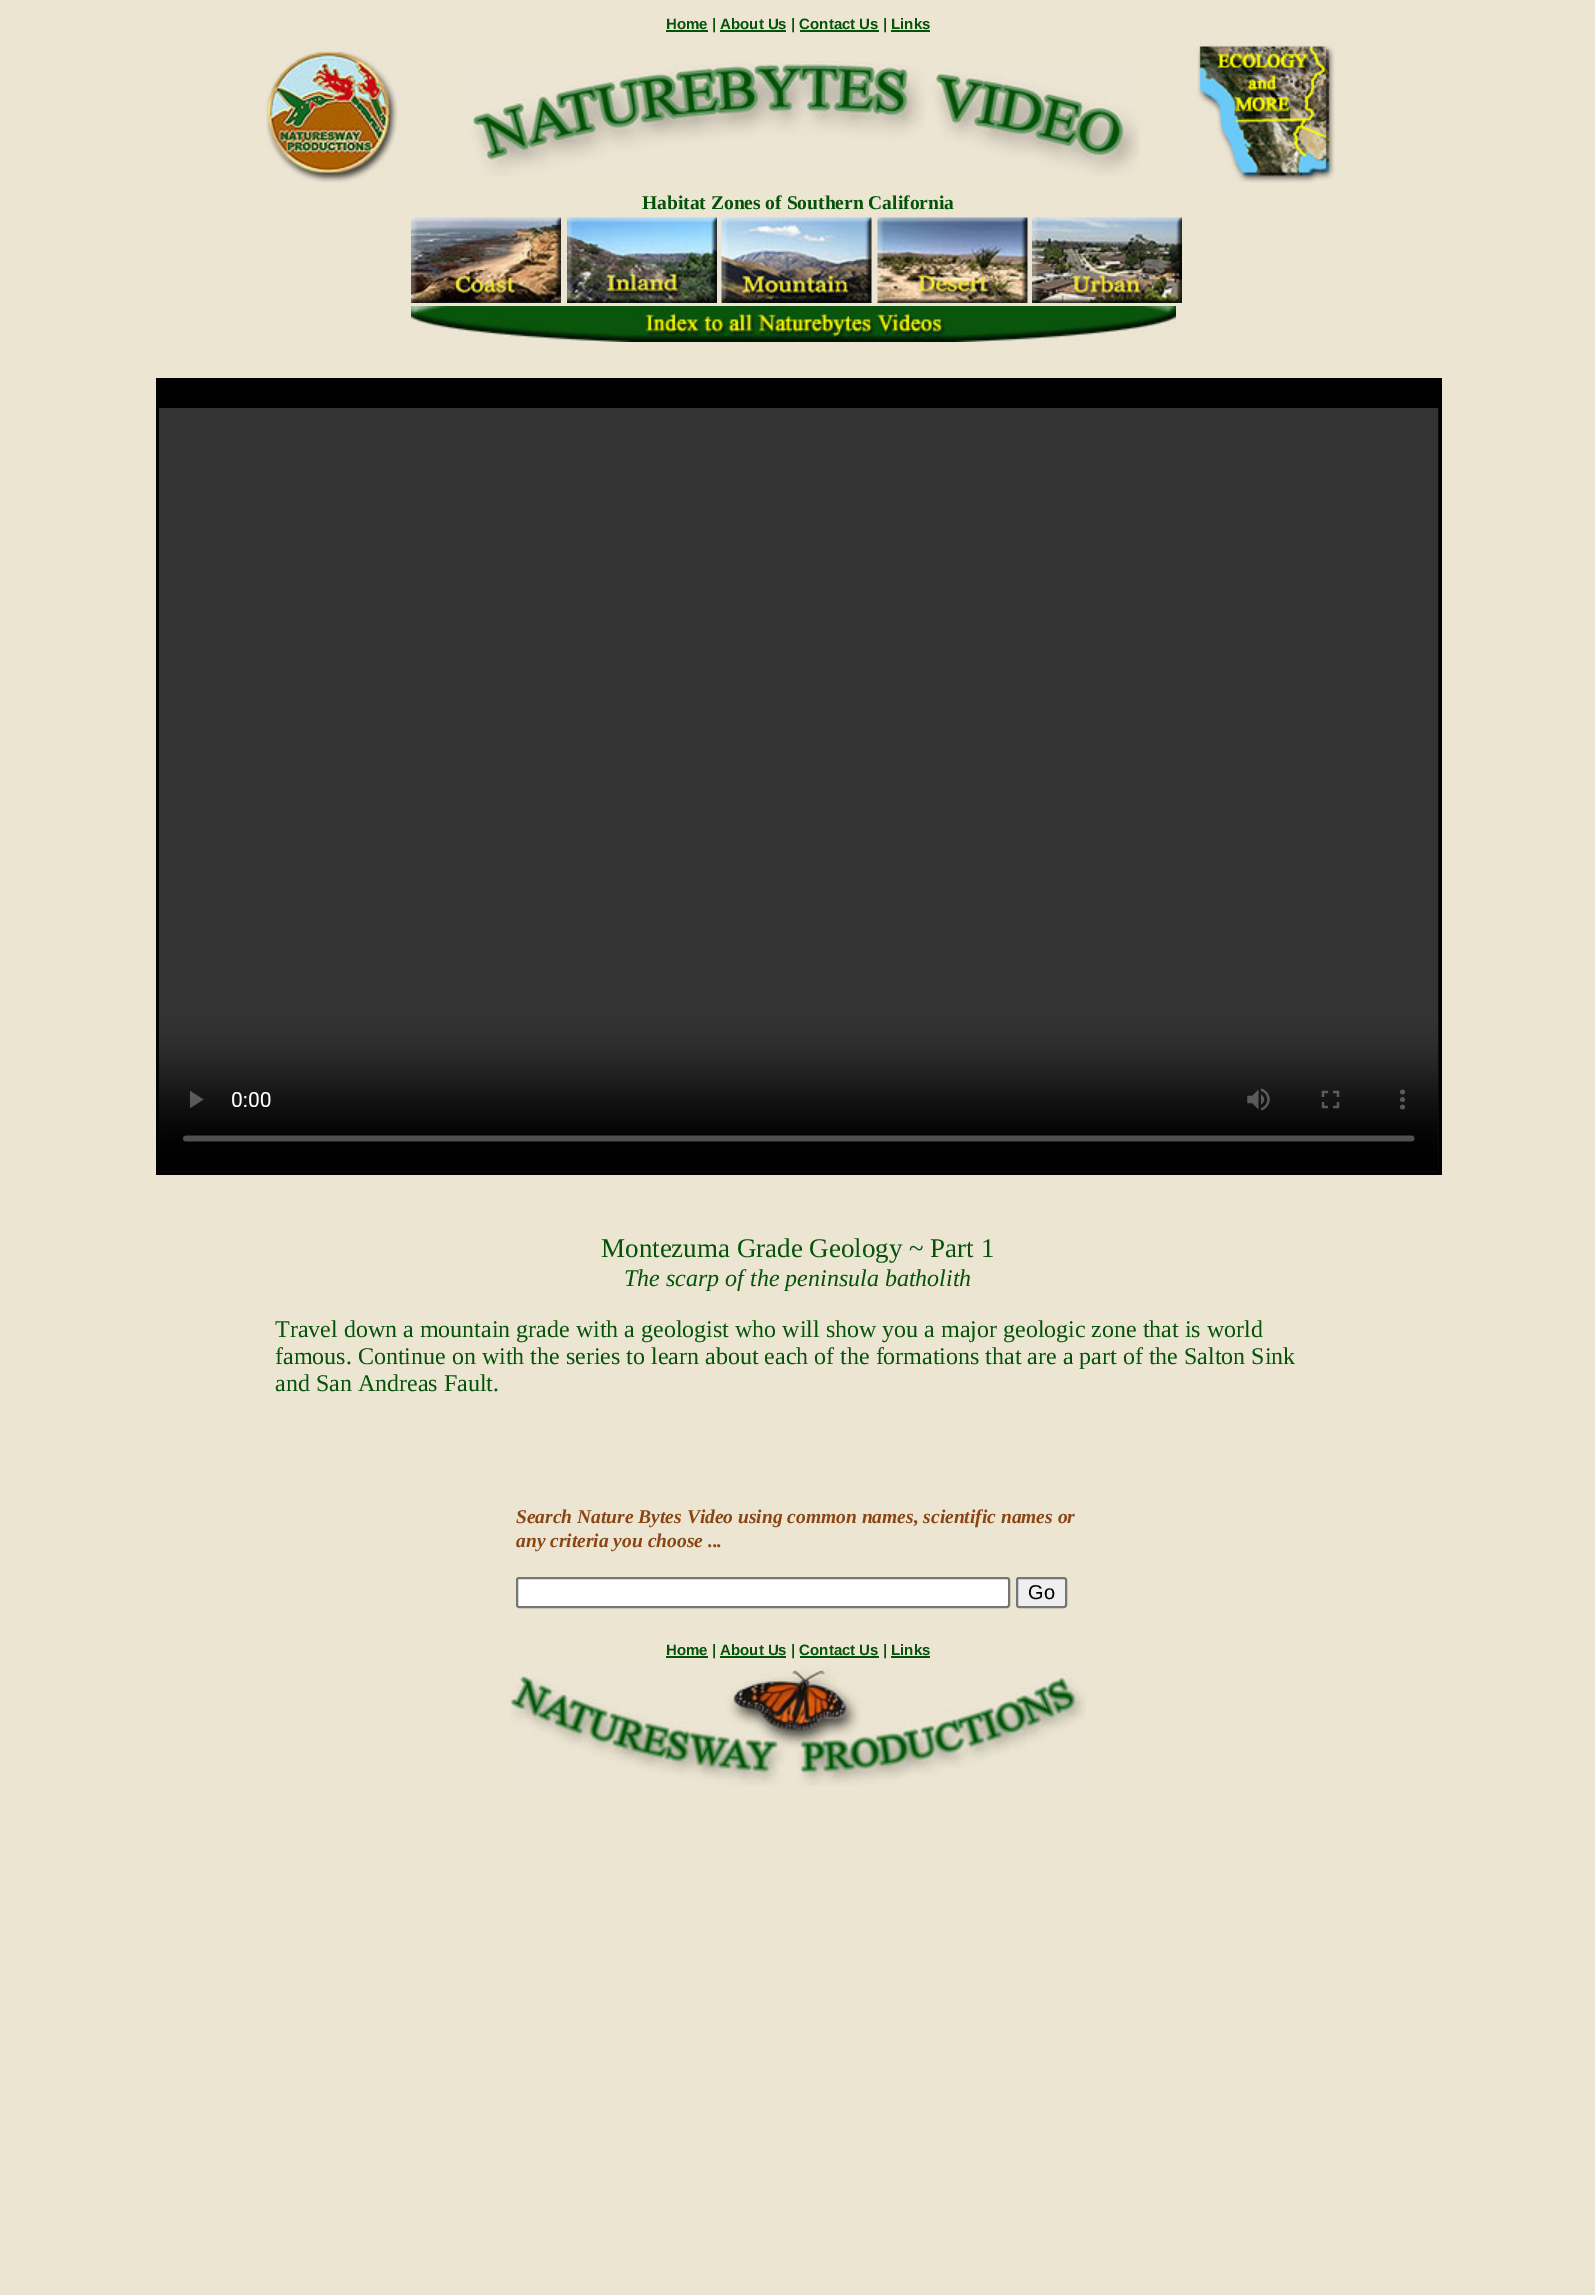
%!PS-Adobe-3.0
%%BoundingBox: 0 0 1595 2295
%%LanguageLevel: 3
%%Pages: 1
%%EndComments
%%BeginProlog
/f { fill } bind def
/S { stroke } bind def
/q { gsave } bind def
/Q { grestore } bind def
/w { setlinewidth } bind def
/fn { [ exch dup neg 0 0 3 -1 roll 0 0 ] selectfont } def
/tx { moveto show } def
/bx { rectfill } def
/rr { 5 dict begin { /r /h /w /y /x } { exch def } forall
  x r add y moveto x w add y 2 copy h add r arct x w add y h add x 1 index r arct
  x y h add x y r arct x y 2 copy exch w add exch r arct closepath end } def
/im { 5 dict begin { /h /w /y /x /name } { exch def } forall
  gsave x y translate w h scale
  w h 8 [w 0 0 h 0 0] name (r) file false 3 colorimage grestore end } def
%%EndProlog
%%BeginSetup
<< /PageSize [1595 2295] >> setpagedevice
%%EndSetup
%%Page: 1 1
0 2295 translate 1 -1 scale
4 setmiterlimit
0.925 0.898 0.824 setrgbcolor
0 0 1595 2295 bx
0.016 0.325 0.035 setrgbcolor
666 30 42 2 bx
/LiberationSans-Bold 15 fn
(Home | About Us | Contact Us | Links) 666 29 tx
720 30 66 2 bx
800 30 79 2 bx
891 30 39 2 bx
(image0.raw) 266 49 133 134 im
(image1.raw) 468 61 672 115 im
(image2.raw) 1191 37 144 146 im
/LiberationSerif-Bold 19.5 fn
(Habitat Zones of Southern California) 642 209 tx
(image3.raw) 411 217 150 86 im
(image4.raw) 567 217 150 86 im
(image5.raw) 721 217 151 86 im
(image6.raw) 877 217 151 86 im
(image7.raw) 1032 217 150 86 im
(image8.raw) 411 306 765 36 im
0 setgray
156 378 1286 797 bx
(image9.raw) 159 408 1280 764 im
/LiberationSerif-Regular 27 fn
0.016 0.325 0.035 setrgbcolor
(Montezuma Grade Geology ~ Part 1) 601 1257 tx
/LiberationSerif-Italic 24 fn
(The scarp of the peninsula batholith) 624 1286 tx
/LiberationSerif-Regular 24 fn
(Travel down a mountain grade with a geologist who will show you a major geologic zone that is world) 275 1337 tx
(famous. Continue on with the series to learn about each of the formations that are a part of the Salton Sink) 275 1364 tx
(and San Andreas Fault.) 275 1391 tx
/LiberationSerif-BoldItalic 19.5 fn
0.545 0.271 0.075 setrgbcolor
(Search Nature Bytes Video using common names, scientific names or) 516 1523 tx
(any criteria you choose ...) 516 1547 tx
1 setgray
517 1578 492 29 2 rr q f Q
0.463 setgray
2 w
S
0.937 setgray
1017 1578 49 29 2 rr q f Q
0.463 setgray
S
/LiberationSans-Regular 20 fn
0 setgray
(Go) 1028 1599 tx
0.016 0.325 0.035 setrgbcolor
666 1656 42 2 bx
/LiberationSans-Bold 15 fn
(Home | About Us | Contact Us | Links) 666 1655 tx
720 1656 66 2 bx
800 1656 79 2 bx
891 1656 39 2 bx
(image10.raw) 510 1661 576 125 im
showpage
%%EOF
